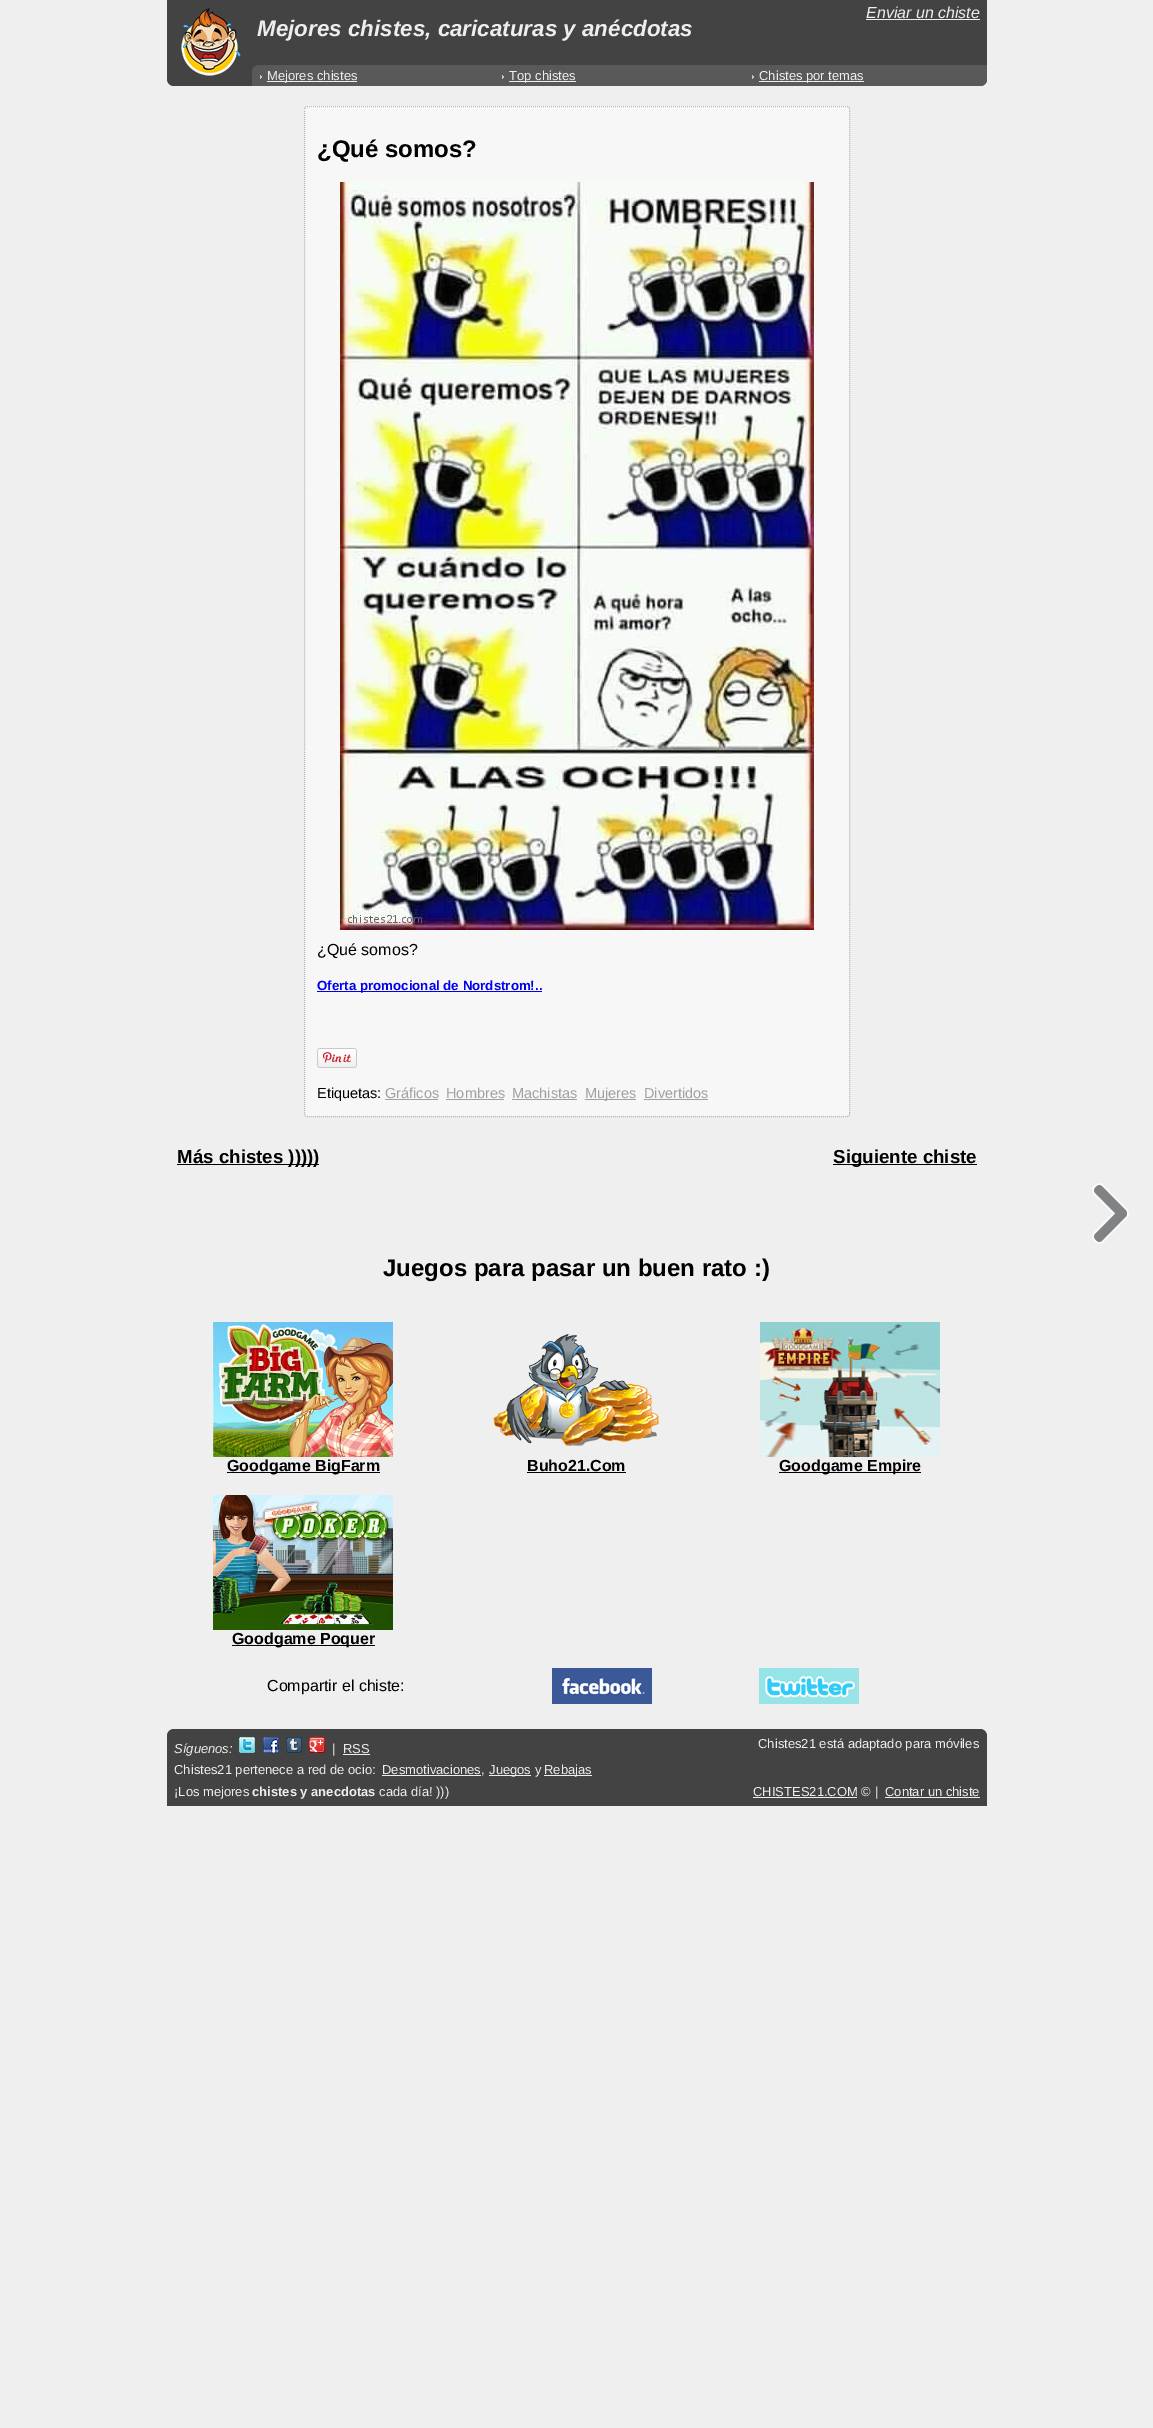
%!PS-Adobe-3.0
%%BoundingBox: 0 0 1153 2428
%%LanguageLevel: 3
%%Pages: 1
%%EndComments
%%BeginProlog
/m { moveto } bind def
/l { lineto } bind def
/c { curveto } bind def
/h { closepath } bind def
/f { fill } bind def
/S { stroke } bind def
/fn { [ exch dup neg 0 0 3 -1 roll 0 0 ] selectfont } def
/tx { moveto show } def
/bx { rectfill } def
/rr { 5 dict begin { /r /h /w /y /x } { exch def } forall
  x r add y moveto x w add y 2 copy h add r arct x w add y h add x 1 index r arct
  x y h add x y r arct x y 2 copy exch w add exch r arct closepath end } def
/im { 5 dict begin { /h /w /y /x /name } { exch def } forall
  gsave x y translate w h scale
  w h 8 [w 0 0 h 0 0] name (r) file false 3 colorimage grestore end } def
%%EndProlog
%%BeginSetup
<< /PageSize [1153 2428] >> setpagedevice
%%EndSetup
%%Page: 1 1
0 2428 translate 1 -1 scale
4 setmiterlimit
0.937 setgray
0 0 1153 2428 bx
0.263 setgray
167 0 m 252 0 l 252 86 l 174 86 l 170 86 167 83 167 79 c h f
(image0.raw) 181 8 60 68 im
252 0 735 61 bx
/LiberationSans-Italic 16 fn
0.933 setgray
(Enviar un chiste) 866 18 tx
866 19 114 1 bx
/LiberationSans-BoldItalic 22.4 fn
(Mejores chistes, caricaturas y anécdotas) 257 36 tx
0.263 setgray
252 61 m 987 61 l 987 79 l 987 83 984 86 980 86 c 252 86 l h f
0.349 setgray
259 65 m 494 65 l 494 86 l 252 86 l 252 72 l 252 68 255 65 259 65 c h f
(image1.raw) 260 75 2 4 im
0.933 setgray
267 81 90 1 bx
/LiberationSans-Regular 13 fn
(Mejores chistes) 267 80 tx
0.349 setgray
494 65 250 21 bx
(image1.raw) 502 75 2 4 im
0.933 setgray
509 81 67 1 bx
(Top chistes) 509 80 tx
0.349 setgray
744 65 m 987 65 l 987 79 l 987 83 984 86 980 86 c 744 86 l h f
(image1.raw) 752 75 2 4 im
0.933 setgray
759 81 105 1 bx
(Chistes por temas) 759 80 tx
0.969 setgray
304 106 546 1011 3 rr f
0.733 setgray
[1 1] 0 setdash
307 106.5 m 847 106.5 l 848.5 106.5 849.5 107.5 849.5 109 c 849.5 1114 l 849.5 1115.5 848.5 1116.5 847 1116.5 c 307 1116.5 l 305.5 1116.5 304.5 1115.5 304.5 1114 c 304.5 109 l 304.5 107.5 305.5 106.5 307 106.5 c h S
/LiberationSans-Bold 24 fn
0 setgray
(¿Qué somos?) 317 157 tx
(image2.raw) 340 182 474 748 im
/LiberationSans-Regular 16 fn
(¿Qué somos?) 317 955 tx
0 0 0.933 setrgbcolor
317 991 225 1 bx
/LiberationSans-Bold 13.3 fn
(Oferta promocional de Nordstrom!..) 317 990 tx
(image3.raw) 317 1048 40 20 im
/LiberationSans-Regular 14.5 fn
0 setgray
(Etiquetas:) 317 1098 tx
0.627 setgray
(Gráficos) 385 1098 tx
385 1099 53 1 bx
(Hombres) 446 1098 tx
446 1099 58 1 bx
(Machistas) 512 1098 tx
512 1099 65 1 bx
585 1099 51 1 bx
(Mujeres) 585 1098 tx
(Divertidos) 644 1098 tx
644 1099 64 1 bx
0 setgray
177 1164 142 1 bx
/LiberationSans-Bold 18.75 fn
(Más chistes \)\)\)\)\)) 177 1163 tx
833 1164 144 1 bx
(Siguiente chiste) 833 1163 tx
/LiberationSans-Bold 24 fn
(Juegos para pasar un buen rato :\)) 383 1276 tx
(image4.raw) 213 1322 180 135 im
227 1472 153 1 bx
/LiberationSans-Bold 16 fn
(Goodgame BigFarm) 227 1471 tx
(image5.raw) 493 1334 166 112 im
(Buho21.Com) 527 1471 tx
527 1472 99 1 bx
(image6.raw) 760 1322 180 135 im
779 1472 142 1 bx
(Goodgame Empire) 779 1471 tx
(image7.raw) 213 1495 180 135 im
232 1645 143 1 bx
(Goodgame Poquer) 232 1644 tx
/LiberationSans-Regular 16 fn
(Compartir el chiste:) 267 1691 tx
(image8.raw) 552 1668 100 36 im
(image9.raw) 759 1668 100 36 im
0.263 setgray
174 1729 m 980 1729 l 984 1729 987 1732 987 1736 c 987 1806 l 167 1806 l 167 1736 l 167 1732 170 1729 174 1729 c h f
/LiberationSans-Italic 13 fn
0.933 setgray
(Síguenos:) 174 1753 tx
(image10.raw) 239 1737 16 16 im
(image11.raw) 263 1737 16 16 im
(image12.raw) 286 1737 16 16 im
(image13.raw) 309 1737 16 16 im
/LiberationSans-Regular 13 fn
(|) 332 1753 tx
(RSS) 343 1753 tx
343 1754 27 1 bx
(Chistes21 está adaptado para móviles) 758 1748 tx
(Chistes21 pertenece a red de ocio:) 174 1774 tx
382 1775 99 1 bx
(Desmotivaciones,) 382 1774 tx
489 1775 42 1 bx
(Juegos y) 489 1774 tx
544 1775 48 1 bx
(Rebajas) 544 1774 tx
(¡Los mejores) 174 1796 tx
/LiberationSans-Bold 13 fn
(chistes y anecdotas) 252 1796 tx
/LiberationSans-Regular 13 fn
(cada día! \)\)\)) 379 1796 tx
753 1797 104 1 bx
(CHISTES21.COM © |) 753 1796 tx
(Contar un chiste) 885 1796 tx
885 1797 95 1 bx
(image14.raw) 1092 1183 37 61 im
showpage
%%EOF
